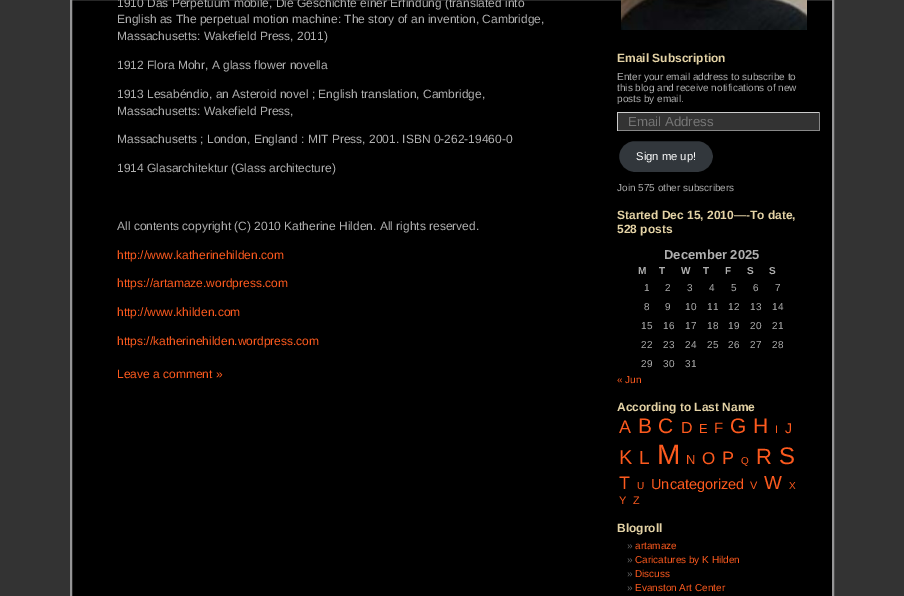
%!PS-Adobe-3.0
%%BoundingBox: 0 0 904 596
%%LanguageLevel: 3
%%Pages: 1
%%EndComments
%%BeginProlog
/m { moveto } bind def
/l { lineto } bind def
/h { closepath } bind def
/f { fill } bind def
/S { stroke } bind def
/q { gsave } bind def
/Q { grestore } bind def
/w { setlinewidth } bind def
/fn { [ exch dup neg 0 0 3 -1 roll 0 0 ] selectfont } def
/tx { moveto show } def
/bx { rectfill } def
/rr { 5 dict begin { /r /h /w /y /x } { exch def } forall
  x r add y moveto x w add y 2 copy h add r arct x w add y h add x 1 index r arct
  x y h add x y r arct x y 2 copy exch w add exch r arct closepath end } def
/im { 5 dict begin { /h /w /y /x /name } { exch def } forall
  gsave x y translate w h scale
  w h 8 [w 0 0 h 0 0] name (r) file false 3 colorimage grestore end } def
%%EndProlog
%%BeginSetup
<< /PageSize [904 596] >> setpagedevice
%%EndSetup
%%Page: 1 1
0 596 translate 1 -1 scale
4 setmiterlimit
0.2 setgray
0 0 904 596 bx
0 setgray
71 -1 m 833 -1 l 833 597 l 71 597 l h q f Q
0.584 0.584 0.588 setrgbcolor
2 w
S
/LiberationSans-Regular 12 fn
0.69 setgray
(1910 Das Perpetuum mobile, Die Geschichte einer Erfindung \(translated into) 117 7 tx
(English as The perpetual motion machine: The story of an invention, Cambridge,) 117 23 tx
(Massachusetts: Wakefield Press, 2011\)) 117 40 tx
(1912 Flora Mohr, A glass flower novella) 117 69 tx
(1913 Lesabéndio, an Asteroid novel ; English translation, Cambridge,) 117 98 tx
(Massachusetts: Wakefield Press,) 117 115 tx
(Massachusetts ; London, England : MIT Press, 2001. ISBN 0-262-19460-0) 117 143 tx
(1914 Glasarchitektur \(Glass architecture\)) 117 172 tx
(All contents copyright \(C\) 2010 Katherine Hilden. All rights reserved.) 117 230 tx
0.992 0.353 0.118 setrgbcolor
(http://www.katherinehilden.com) 117 259 tx
(https://artamaze.wordpress.com) 117 287 tx
(http://www.khilden.com) 117 316 tx
(https://katherinehilden.wordpress.com) 117 345 tx
(Leave a comment ») 117 378 tx
(image0.raw) 621 0 186 30 im
/LiberationSans-Bold 12 fn
0.894 0.827 0.651 setrgbcolor
(Email Subscription) 617 62 tx
/LiberationSans-Regular 10 fn
0.69 setgray
(Enter your email address to subscribe to) 617 80 tx
(this blog and receive notifications of new) 617 91 tx
(posts by email.) 617 102 tx
0.2 setgray
618 113 201 17 bx
0.8 setgray
617 112 203 1 bx
0.533 setgray
819 112 1 19 bx
617 130 203 1 bx
0.8 setgray
617 112 1 19 bx
/LiberationSans-Regular 13.25 fn
0.459 setgray
(Email Address) 628 126 tx
0.196 0.216 0.235 setrgbcolor
618 140 96 33 16.5 rr q f Q
0 setgray
S
/LiberationSans-Regular 11.25 fn
1 setgray
(Sign me up!) 636 160 tx
/LiberationSans-Regular 10 fn
0.69 setgray
(Join 575 other subscribers) 617 191 tx
/LiberationSans-Bold 12 fn
0.894 0.827 0.651 setrgbcolor
(Started Dec 15, 2010—-To date,) 617 219 tx
(528 posts) 617 233 tx
/LiberationSans-Bold 13 fn
0.69 setgray
(December 2025) 664 259 tx
/LiberationSans-Bold 10 fn
(M) 638 274 tx
(T) 659 274 tx
(W) 681 274 tx
(T) 703 274 tx
(F) 725 274 tx
(S) 747 274 tx
(S) 769 274 tx
/LiberationSans-Regular 10 fn
(1) 644 291 tx
(2) 665 291 tx
(3) 687 291 tx
(4) 709 291 tx
(5) 731 291 tx
(6) 753 291 tx
(7) 775 291 tx
(8) 644 310 tx
(9) 665 310 tx
(10) 685 310 tx
(11) 707 310 tx
(12) 728 310 tx
(13) 750 310 tx
(14) 772 310 tx
(15) 641 329 tx
(16) 663 329 tx
(17) 685 329 tx
(18) 707 329 tx
(19) 728 329 tx
(20) 750 329 tx
(21) 772 329 tx
(22) 641 348 tx
(23) 663 348 tx
(24) 685 348 tx
(25) 707 348 tx
(26) 728 348 tx
(27) 750 348 tx
(28) 772 348 tx
(29) 641 367 tx
(30) 663 367 tx
(31) 685 367 tx
0.992 0.353 0.118 setrgbcolor
(« Jun) 617 383 tx
/LiberationSans-Bold 12 fn
0.894 0.827 0.651 setrgbcolor
(According to Last Name) 617 411 tx
/LiberationSans-Regular 18 fn
0.992 0.353 0.118 setrgbcolor
(A) 619 433 tx
/LiberationSans-Regular 21 fn
(B) 638 433 tx
(C) 658 433 tx
/LiberationSans-Regular 16 fn
(D) 681 433 tx
/LiberationSans-Regular 13 fn
(E) 699 433 tx
/LiberationSans-Regular 15 fn
(F) 714 433 tx
/LiberationSans-Regular 21 fn
(G) 730 433 tx
(H) 753 433 tx
/LiberationSans-Regular 11 fn
(I) 775 433 tx
/LiberationSans-Regular 14 fn
(J) 785 433 tx
/LiberationSans-Regular 20 fn
(K) 619 464 tx
/LiberationSans-Regular 19 fn
(L) 639 464 tx
/LiberationSans-Regular 28 fn
(M) 657 464 tx
/LiberationSans-Regular 13 fn
(N) 686 464 tx
/LiberationSans-Regular 17 fn
(O) 702 464 tx
/LiberationSans-Regular 18 fn
(P) 722 464 tx
/LiberationSans-Regular 10 fn
(Q) 741 464 tx
/LiberationSans-Regular 22 fn
(R) 756 464 tx
/LiberationSans-Regular 24 fn
(S) 779 464 tx
/LiberationSans-Regular 18 fn
(T) 619 489 tx
/LiberationSans-Regular 10 fn
(U) 637 489 tx
/LiberationSans-Regular 14.5 fn
(Uncategorized) 651 489 tx
/LiberationSans-Regular 11 fn
(V) 750 489 tx
/LiberationSans-Regular 19 fn
(W) 764 489 tx
/LiberationSans-Regular 10 fn
(X) 789 489 tx
/LiberationSans-Regular 11 fn
(Y) 619 504 tx
(Z) 633 504 tx
/LiberationSans-Bold 12 fn
0.894 0.827 0.651 setrgbcolor
(Blogroll) 617 532 tx
/LiberationSans-Regular 10 fn
0.4 setgray
(») 627 549 tx
0.992 0.353 0.118 setrgbcolor
(artamaze) 635 549 tx
0.4 setgray
(») 627 563 tx
0.992 0.353 0.118 setrgbcolor
(Caricatures by K Hilden) 635 563 tx
0.4 setgray
(») 627 577 tx
0.992 0.353 0.118 setrgbcolor
(Discuss) 635 577 tx
0.4 setgray
(») 627 591 tx
0.992 0.353 0.118 setrgbcolor
(Evanston Art Center) 635 591 tx
showpage
%%EOF
